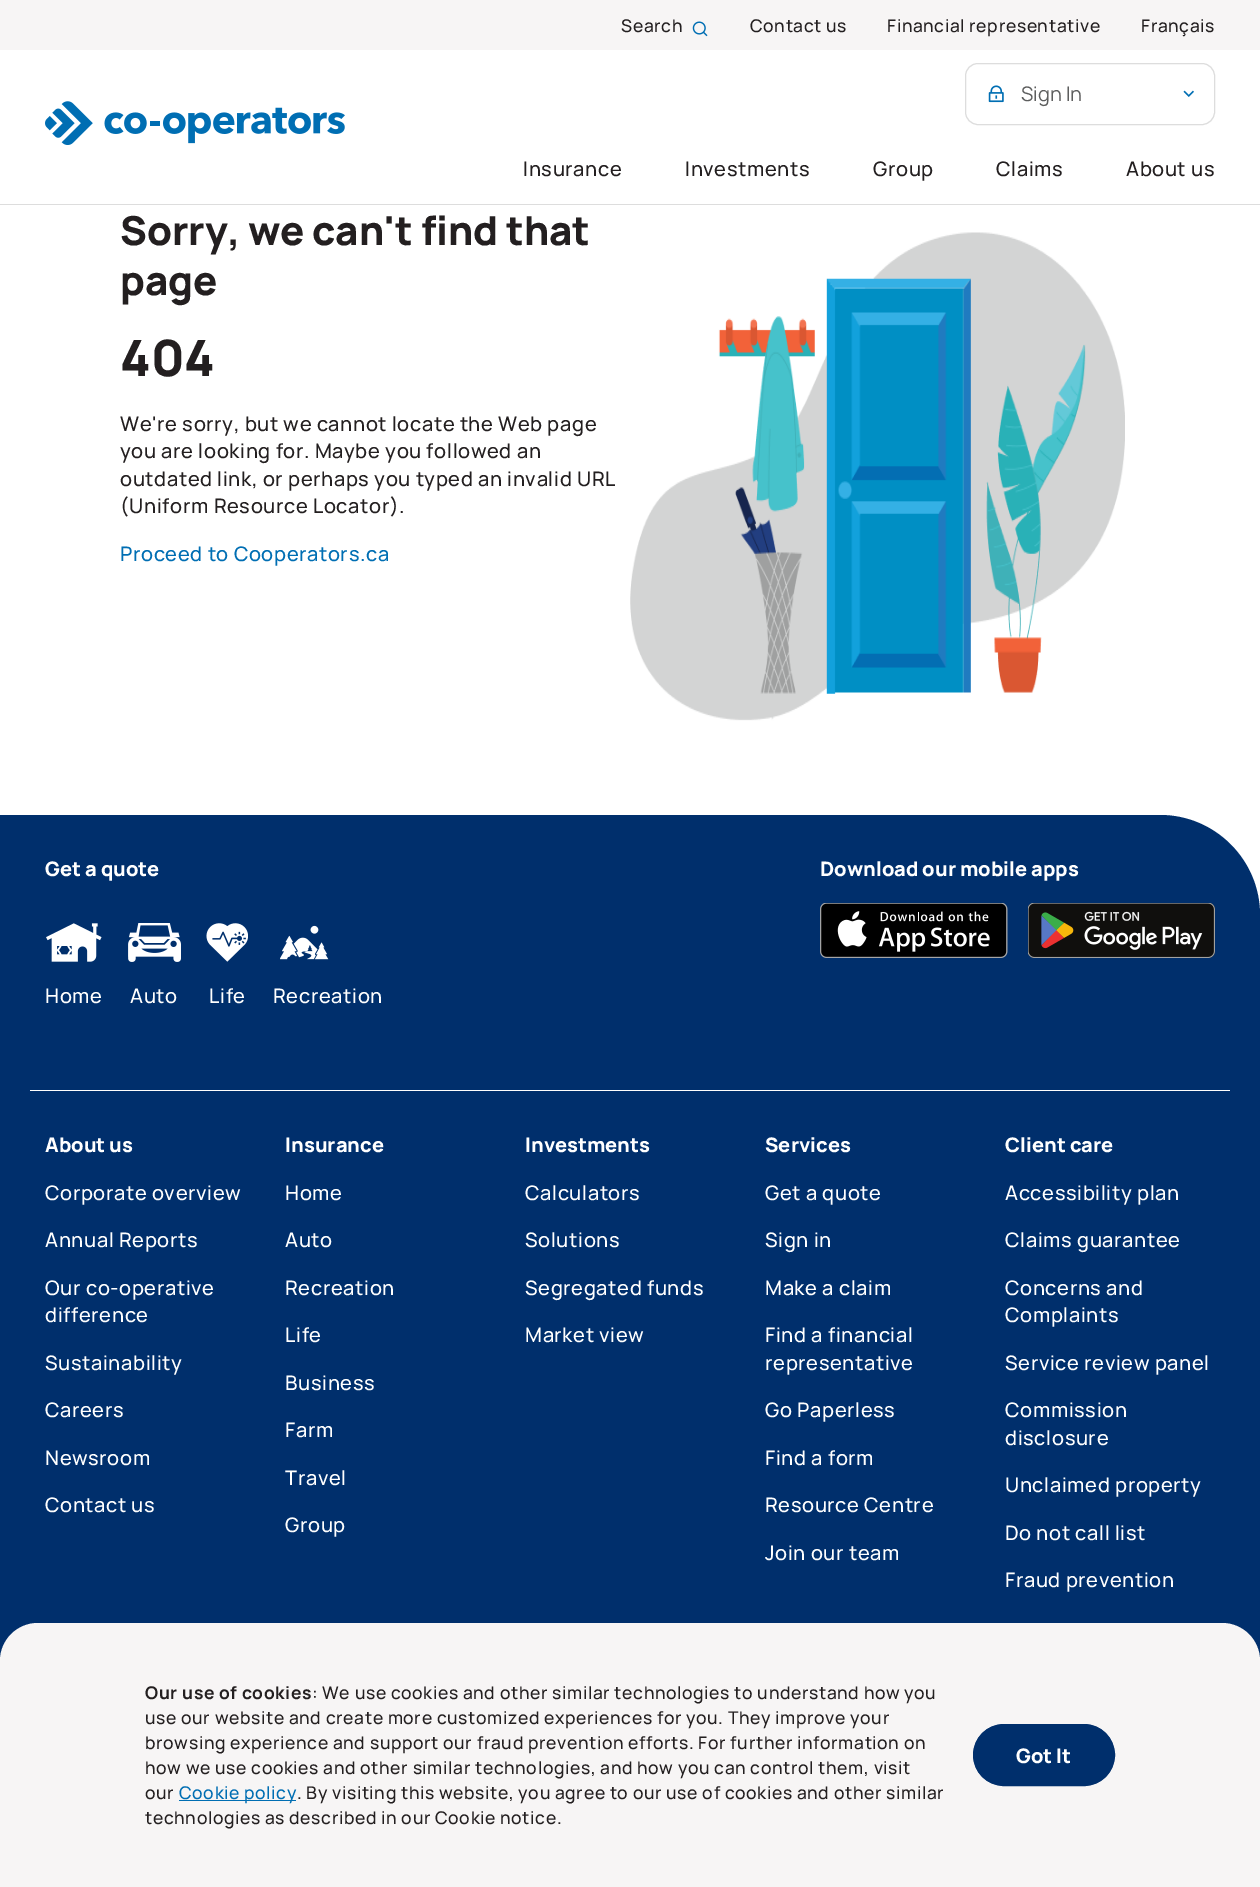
%!PS-Adobe-3.0
%%BoundingBox: 0 0 1260 1887
%%LanguageLevel: 3
%%Pages: 1
%%EndComments
%%BeginProlog
/m { moveto } bind def
/l { lineto } bind def
/c { curveto } bind def
/h { closepath } bind def
/f { fill } bind def
/S { stroke } bind def
/q { gsave } bind def
/Q { grestore } bind def
/fn { [ exch dup neg 0 0 3 -1 roll 0 0 ] selectfont } def
/tx { moveto show } def
/bx { rectfill } def
/rr { 5 dict begin { /r /h /w /y /x } { exch def } forall
  x r add y moveto x w add y 2 copy h add r arct x w add y h add x 1 index r arct
  x y h add x y r arct x y 2 copy exch w add exch r arct closepath end } def
/im { 5 dict begin { /h /w /y /x /name } { exch def } forall
  gsave x y translate w h scale
  w h 8 [w 0 0 h 0 0] name (r) file false 3 colorimage grestore end } def
%%EndProlog
%%BeginSetup
<< /PageSize [1260 1887] >> setpagedevice
%%EndSetup
%%Page: 1 1
0 1887 translate 1 -1 scale
4 setmiterlimit
1 setgray
0 0 1260 1887 bx
0.867 setgray
0 204 1260 1 bx
0.969 0.961 0.961 setrgbcolor
0 0 1260 50 bx
/Manrope-Medium 17.5 fn
0.137 0.122 0.125 setrgbcolor
621 32 m 0.62 0 (Search) ashow
(image0.raw) 692 21 16 16 im
750 32 m 0.62 0 (Contact us) ashow
887 32 m 0.62 0 (Financial representative) ashow
1141 32 m 0.62 0 (Français) ashow
(image1.raw) 45 101 300 44 im
0.867 setgray
965.5 63.5 249 61 12.5 rr S
(image2.raw) 988 85 16 18 im
/Manrope-Regular 20 fn
0.365 0.369 0.369 setrgbcolor
(Sign In) 1021 101 tx
(image3.raw) 1183 90 11 7 im
/Manrope-Medium 20 fn
0.137 0.122 0.125 setrgbcolor
523 176 m 0.62 0 (Insurance) ashow
685 176 m 0.62 0 (Investments) ashow
873 176 m 0.62 0 (Group) ashow
996 176 m 0.62 0 (Claims) ashow
1126 176 m 0.62 0 (About us) ashow
/Manrope-ExtraBold 40 fn
120 245 m -0.5 0 32 (Sorry, we can't find that) widthshow
(page) 120 295 tx
/Manrope-ExtraBold 50 fn
(404) 120 376 tx
/Manrope-Medium 20 fn
120 431 m 0.62 0 (We're sorry, but we cannot locate the Web page) ashow
120 458 m 0.62 0 (you are looking for. Maybe you followed an) ashow
120 486 m 0.62 0 (outdated link, or perhaps you typed an invalid URL) ashow
120 513 m 0.62 0 (\(Uniform Resource Locator\).) ashow
0 0.431 0.702 setrgbcolor
120 561 m 0.62 0 (Proceed to Cooperators.ca) ashow
(image4.raw) 630 232 495 489 im
0 0.184 0.424 setrgbcolor
0 815 m 1160 815 l 1215 815 1260 860 1260 915 c 1260 1879 l 0 1879 l h f
/Manrope-ExtraBold 20 fn
1 setgray
(Get a quote) 45 876 tx
(image5.raw) 46 923 56 39 im
/Manrope-Medium 20 fn
45 1003 m 0.62 0 (Home) ashow
(image6.raw) 128 923 53 39 im
130 1003 m 0.62 0 (Auto) ashow
(image7.raw) 206 923 42 39 im
209 1003 m 0.62 0 (Life) ashow
(image8.raw) 280 925 49 35 im
273 1003 m 0.62 0 (Recreation) ashow
/Manrope-ExtraBold 20 fn
(Download our mobile apps) 820 876 tx
(image9.raw) 820 903 188 55 im
(image10.raw) 1028 903 187 55 im
30 1090 1200 1 bx
(About us) 45 1152 tx
/Manrope-Medium 20 fn
45 1200 m 0.62 0 (Corporate overview) ashow
45 1247 m 0.62 0 (Annual Reports) ashow
45 1295 m 0.62 0 (Our co-operative) ashow
45 1322 m 0.62 0 (difference) ashow
45 1370 m 0.62 0 (Sustainability) ashow
45 1417 m 0.62 0 (Careers) ashow
45 1465 m 0.62 0 (Newsroom) ashow
45 1512 m 0.62 0 (Contact us) ashow
/Manrope-ExtraBold 20 fn
(Insurance) 285 1152 tx
/Manrope-Medium 20 fn
285 1200 m 0.62 0 (Home) ashow
285 1247 m 0.62 0 (Auto) ashow
285 1295 m 0.62 0 (Recreation) ashow
285 1342 m 0.62 0 (Life) ashow
285 1390 m 0.62 0 (Business) ashow
285 1437 m 0.62 0 (Farm) ashow
285 1485 m 0.62 0 (Travel) ashow
285 1532 m 0.62 0 (Group) ashow
/Manrope-ExtraBold 20 fn
(Investments) 525 1152 tx
/Manrope-Medium 20 fn
525 1200 m 0.62 0 (Calculators) ashow
525 1247 m 0.62 0 (Solutions) ashow
525 1295 m 0.62 0 (Segregated funds) ashow
525 1342 m 0.62 0 (Market view) ashow
/Manrope-ExtraBold 20 fn
(Services) 765 1152 tx
/Manrope-Medium 20 fn
765 1200 m 0.62 0 (Get a quote) ashow
765 1247 m 0.62 0 (Sign in) ashow
765 1295 m 0.62 0 (Make a claim) ashow
765 1342 m 0.62 0 (Find a financial) ashow
765 1370 m 0.62 0 (representative) ashow
765 1417 m 0.62 0 (Go Paperless) ashow
765 1465 m 0.62 0 (Find a form) ashow
765 1512 m 0.62 0 (Resource Centre) ashow
765 1560 m 0.62 0 (Join our team) ashow
/Manrope-ExtraBold 20 fn
(Client care) 1005 1152 tx
/Manrope-Medium 20 fn
1005 1200 m 0.62 0 (Accessibility plan) ashow
1005 1247 m 0.62 0 (Claims guarantee) ashow
1005 1295 m 0.62 0 (Concerns and) ashow
1005 1322 m 0.62 0 (Complaints) ashow
1005 1370 m 0.62 0 (Service review panel) ashow
1005 1417 m 0.62 0 (Commission) ashow
1005 1445 m 0.62 0 (disclosure) ashow
1005 1492 m 0.62 0 (Unclaimed property) ashow
1005 1540 m 0.62 0 (Do not call list) ashow
1005 1587 m 0.62 0 (Fraud prevention) ashow
0.969 0.961 0.961 setrgbcolor
38 1623 m 1222 1623 l 1243 1623 1260 1640 1260 1661 c 1260 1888 l 0 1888 l 0 1661 l 0 1640 17 1623 38 1623 c h f
/Manrope-Bold 17.5 fn
0.137 0.122 0.125 setrgbcolor
145 1699 m 0.62 0 (Our use of cookies) ashow
/Manrope-Medium 17.5 fn
312 1699 m 0.62 0 (: We use cookies and other similar technologies to understand how you) ashow
145 1724 m 0.62 0 (use our website and create more customized experiences for you. They improve your) ashow
145 1749 m 0.62 0 (browsing experience and support our fraud prevention efforts. For further information on) ashow
145 1774 m 0.62 0 (how we use cookies and other similar technologies, and how you can control them, visit) ashow
145 1799 m 0.62 0 (our) ashow
0 0.431 0.702 setrgbcolor
179 1800 117 1 bx
179 1799 m 0.62 0 (Cookie policy) ashow
0.137 0.122 0.125 setrgbcolor
297 1799 m 0.62 0 (. By visiting this website, you agree to our use of cookies and other similar) ashow
145 1824 m 0.62 0 (technologies as described in our Cookie notice.) ashow
0 0.184 0.424 setrgbcolor
973.5 1724.5 141 61 30.5 rr q f Q
S
/Manrope-ExtraBold 20 fn
1 setgray
(Got It) 1016 1763 tx
showpage
%%EOF
